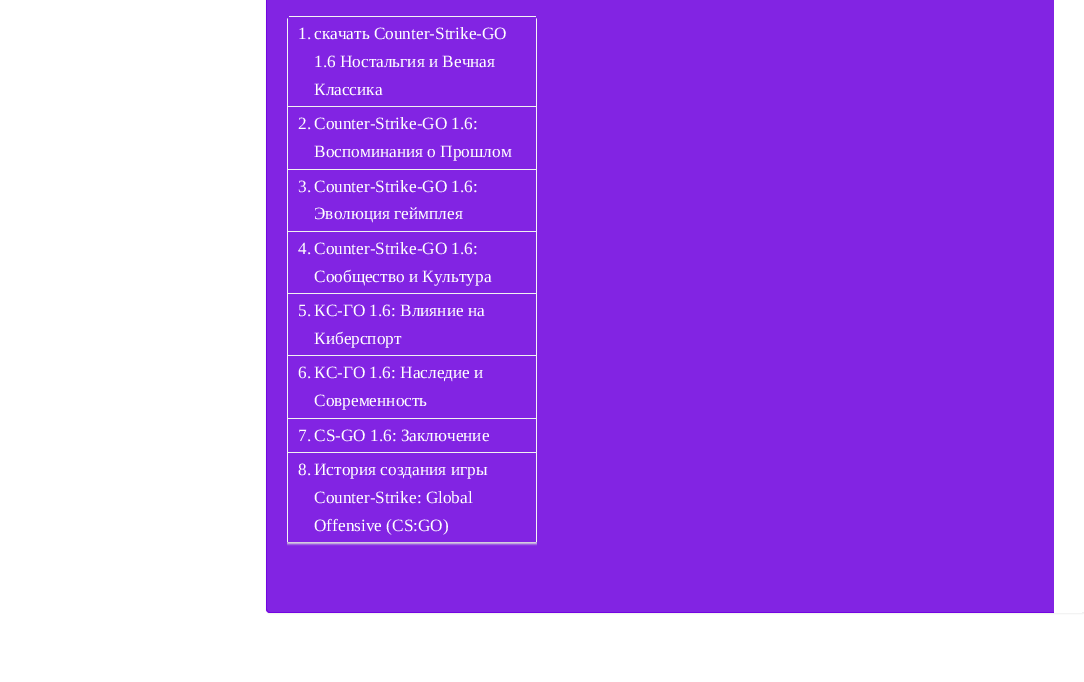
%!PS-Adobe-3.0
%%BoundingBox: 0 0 1084 682
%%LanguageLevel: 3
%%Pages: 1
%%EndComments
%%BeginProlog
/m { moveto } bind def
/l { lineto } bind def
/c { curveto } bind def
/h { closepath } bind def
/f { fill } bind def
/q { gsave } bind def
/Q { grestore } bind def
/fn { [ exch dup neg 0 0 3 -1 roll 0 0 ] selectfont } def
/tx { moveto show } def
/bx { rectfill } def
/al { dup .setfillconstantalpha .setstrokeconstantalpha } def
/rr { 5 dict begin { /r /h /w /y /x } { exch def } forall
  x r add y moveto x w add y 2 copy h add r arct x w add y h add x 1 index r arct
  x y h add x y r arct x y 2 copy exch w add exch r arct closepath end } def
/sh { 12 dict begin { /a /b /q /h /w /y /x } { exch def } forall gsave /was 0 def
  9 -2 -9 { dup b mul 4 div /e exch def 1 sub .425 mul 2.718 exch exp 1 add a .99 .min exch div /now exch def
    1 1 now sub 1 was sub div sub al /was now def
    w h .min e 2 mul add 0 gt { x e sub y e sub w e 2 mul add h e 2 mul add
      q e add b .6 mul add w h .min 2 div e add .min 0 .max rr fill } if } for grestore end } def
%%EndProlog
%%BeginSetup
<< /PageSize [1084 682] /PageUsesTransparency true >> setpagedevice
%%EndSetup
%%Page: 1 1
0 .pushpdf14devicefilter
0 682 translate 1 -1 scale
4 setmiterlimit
1 setgray
0 0 1084 682 bx
q
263 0 m 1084 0 l 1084 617 l 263 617 l h 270 -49 m 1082 -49 l 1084 -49 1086 -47 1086 -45 c 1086 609 l 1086 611 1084 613 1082 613 c 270 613 l 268 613 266 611 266 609 c 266 -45 l 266 -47 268 -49 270 -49 c h eoclip newpath
0 setgray
266 -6 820 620 4 0.5 0.05 sh
Q
0.51 0.141 0.89 setrgbcolor
270 -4 m 1054 -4 l 1054 613 l 270 613 l 268 613 266 611 266 609 c 266 0 l 266 -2 268 -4 270 -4 c h f
0.451 0.016 0.886 setrgbcolor
270 -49 m 268 -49 266 -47 266 -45 c 266 609 l 266 611 268 613 270 613 c 1054 613 l 1054 612 l 270 612 l 268 612 267 611 267 609 c 267 -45 l 267 -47 268 -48 270 -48 c 1054 -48 l 1054 -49 l h f
0.961 setgray
289 16 247 1 bx
q
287 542 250 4 rectclip
0.867 setgray
287 19 250 525 0 1 1 sh
Q
537 542 m 537 19 l 536 18 l 536 542 l h f
288 18 m 287 19 l 287 542 l 288 542 l h f
0.945 setgray
288 106 248 1 bx
/LiberationSerif-Regular 17.25 fn
1 setgray
(1.) 298 39 tx
(скачать Counter-Strike-GO) 314 39 tx
(1.6 Ностальгия и Вечная) 314 67 tx
(Классика) 314 95 tx
0.945 setgray
288 169 248 1 bx
1 setgray
(2.) 298 129 tx
(Counter-Strike-GO 1.6:) 314 129 tx
(Воспоминания о Прошлом) 314 157 tx
0.945 setgray
288 231 248 1 bx
1 setgray
(3.) 298 192 tx
(Counter-Strike-GO 1.6:) 314 192 tx
(Эволюция геймплея) 314 219 tx
0.945 setgray
288 293 248 1 bx
1 setgray
(4.) 298 254 tx
(Counter-Strike-GO 1.6:) 314 254 tx
(Сообщество и Культура) 314 282 tx
0.945 setgray
288 355 248 1 bx
1 setgray
(5.) 298 316 tx
(КС-ГО 1.6: Влияние на) 314 316 tx
(Киберспорт) 314 344 tx
0.945 setgray
288 418 248 1 bx
1 setgray
(6.) 298 378 tx
(КС-ГО 1.6: Наследие и) 314 378 tx
(Современность) 314 406 tx
0.945 setgray
288 452 248 1 bx
1 setgray
(7.) 298 441 tx
(CS-GO 1.6: Заключение) 314 441 tx
(8.) 298 475 tx
(История создания игры) 314 475 tx
(Counter-Strike: Global) 314 503 tx
(Offensive \(CS:GO\)) 314 531 tx
.poppdf14devicefilter showpage
%%EOF
